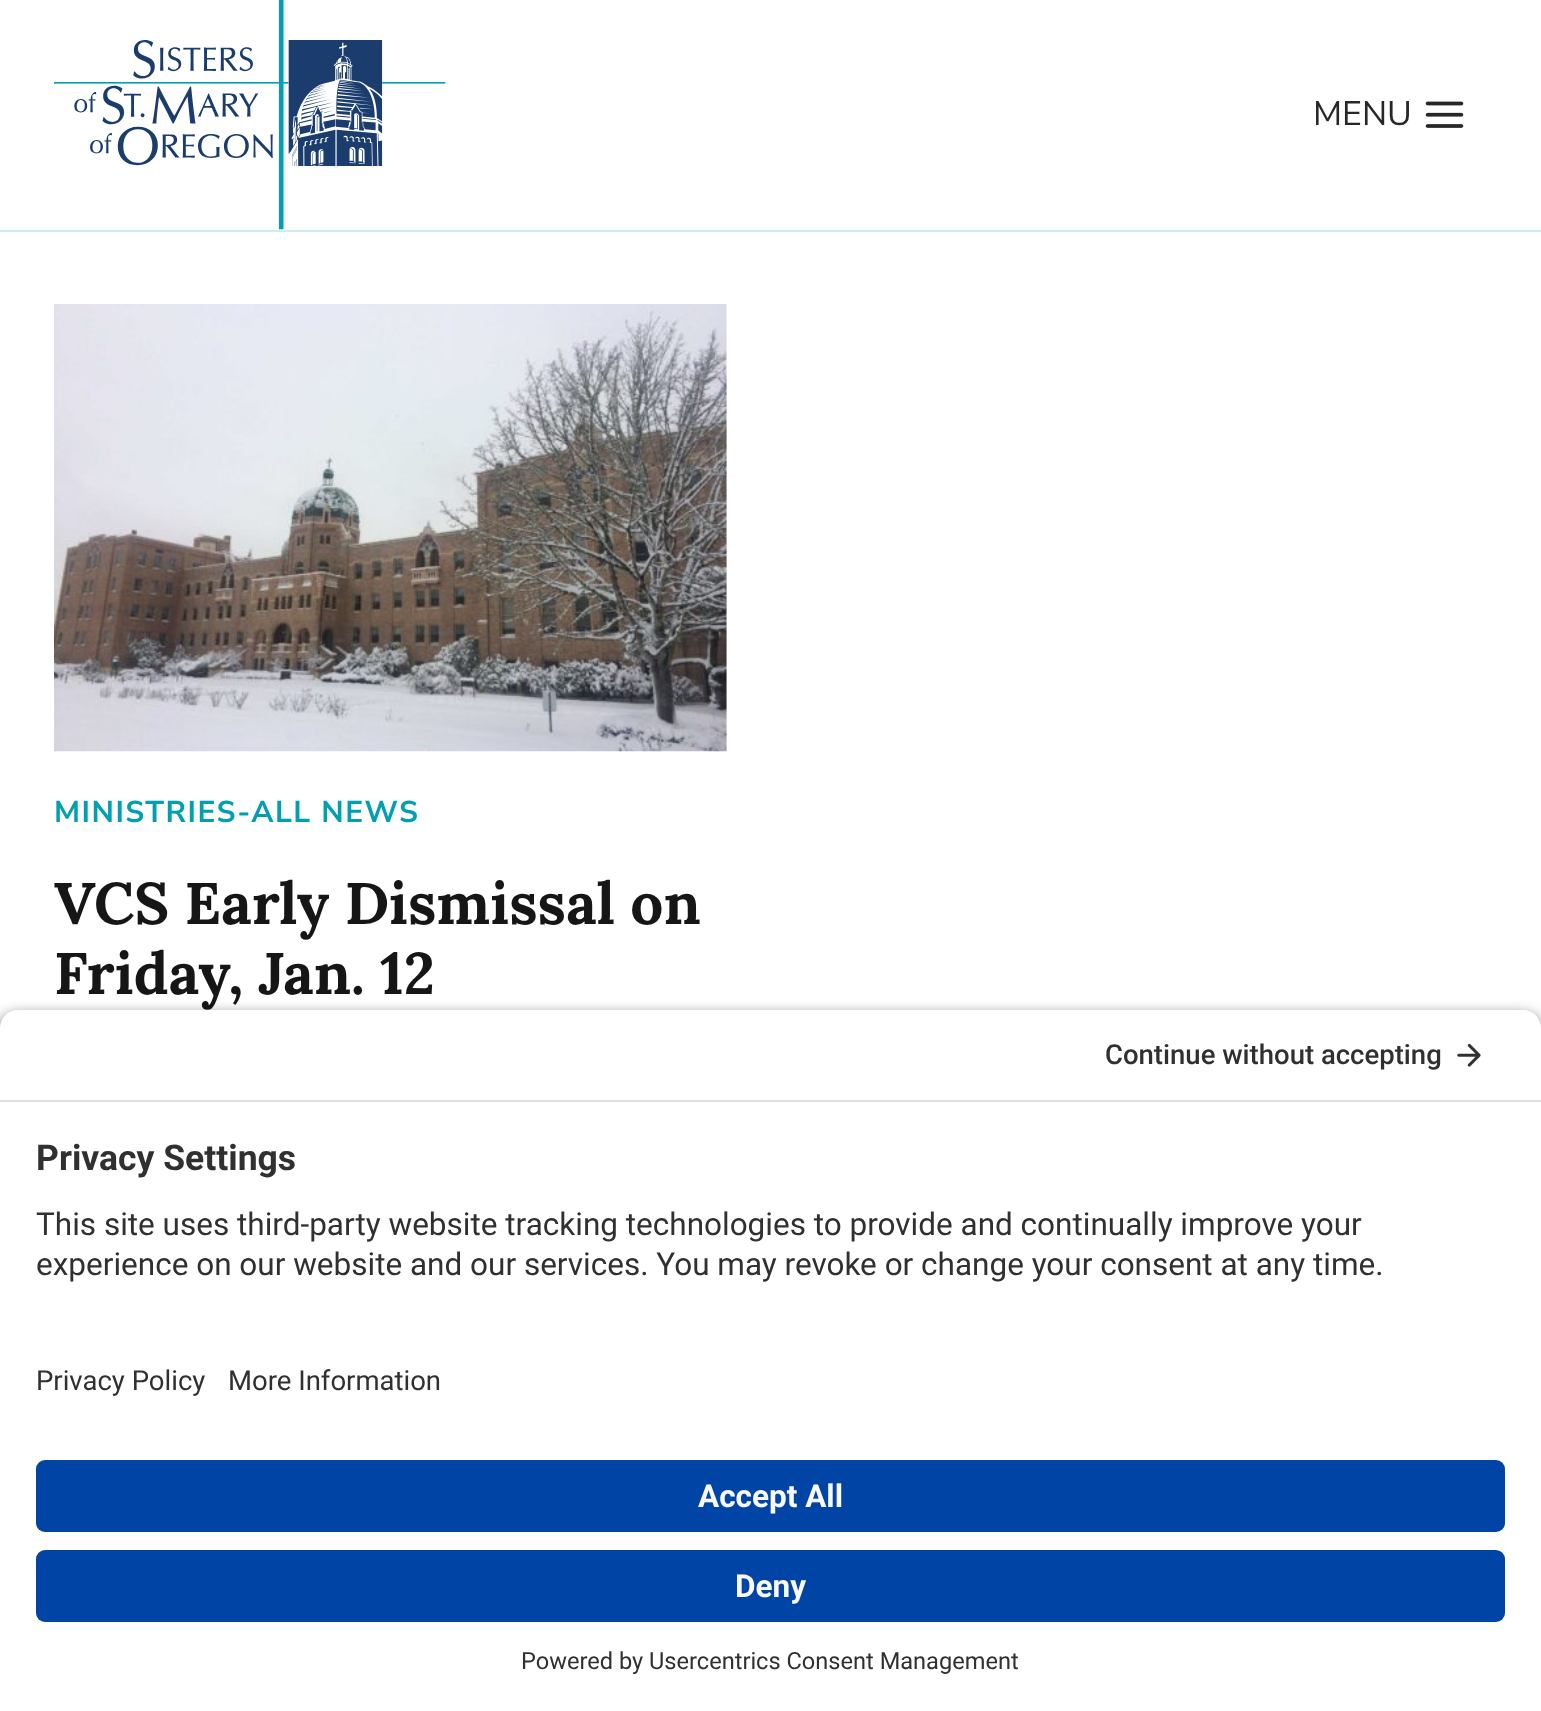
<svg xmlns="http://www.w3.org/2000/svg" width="1541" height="1711">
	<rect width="100%" height="100%" fill="#FFFFFF" />
	<rect x="0" y="230" width="1541" height="2" fill="#CCECEF" />
	<image x="54" y="0" width="392" height="230" href="assets/img1.png" />
	<text x="1313" y="125" font-family="Nunito Sans" font-size="34" fill="#272727">MENU</text>
	<image x="1425" y="101" width="39" height="27" href="assets/img2.png" />
	<image x="54" y="304" width="673" height="448" href="assets/img3.png" />
	<text x="54" y="822" font-family="Nunito Sans" font-size="30" font-weight="700" letter-spacing="1.5" fill="#00A0B0">MINISTRIES-ALL NEWS</text>
	<g font-family="Lora" font-size="58.5" font-weight="700" fill="#161616">
		<text x="54" y="924">VCS Early Dismissal on</text>
		<text x="54" y="994">Friday, Jan. 12</text>
	</g>
	<rect x="0" y="1017" width="1541" height="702" rx="18" fill="#000000" fill-opacity="0.8" filter="blur(8px)" />
	<path d="M18 1010H1523C1533 1010 1541 1018 1541 1028V1103H0V1028C0 1018 8 1010 18 1010Z" fill="#FFFFFF" />
	<rect x="0" y="1100" width="1541" height="2" fill="#DEDEDE" />
	<text x="1105" y="1064" font-family="Roboto" font-size="27.5" font-weight="500" fill="#303030">Continue without accepting</text>
	<image x="1457" y="1043" width="24" height="24" href="assets/img4.png" />
	<rect x="0" y="1103" width="1541" height="608" fill="#FFFFFF" />
	<text x="36" y="1170" font-family="Roboto" font-size="35.5" font-weight="700" fill="#303030">Privacy Settings</text>
	<g font-family="Roboto" font-size="31.5" fill="#303030">
		<text x="36" y="1235">This site uses third-party website tracking technologies to provide and continually improve your</text>
		<text x="36" y="1275">experience on our website and our services. You may revoke or change your consent at any time.</text>
	</g>
	<g font-family="Roboto" font-size="27.5" fill="#303030">
		<text x="36" y="1390">Privacy Policy</text>
		<text x="228" y="1390">More Information</text>
	</g>
	<rect x="36" y="1460" width="1469" height="72" rx="9" fill="#0045A5" />
	<text x="698" y="1507" font-family="Roboto" font-size="31.5" font-weight="700" fill="#FAFAFA">Accept All</text>
	<rect x="36" y="1550" width="1469" height="72" rx="9" fill="#0045A5" />
	<text x="735" y="1597" font-family="Roboto" font-size="31.5" font-weight="700" fill="#FAFAFA">Deny</text>
	<text x="521" y="1669" font-family="Roboto" font-size="23.6" fill="#303030">Powered by Usercentrics Consent Management</text>
</svg>
